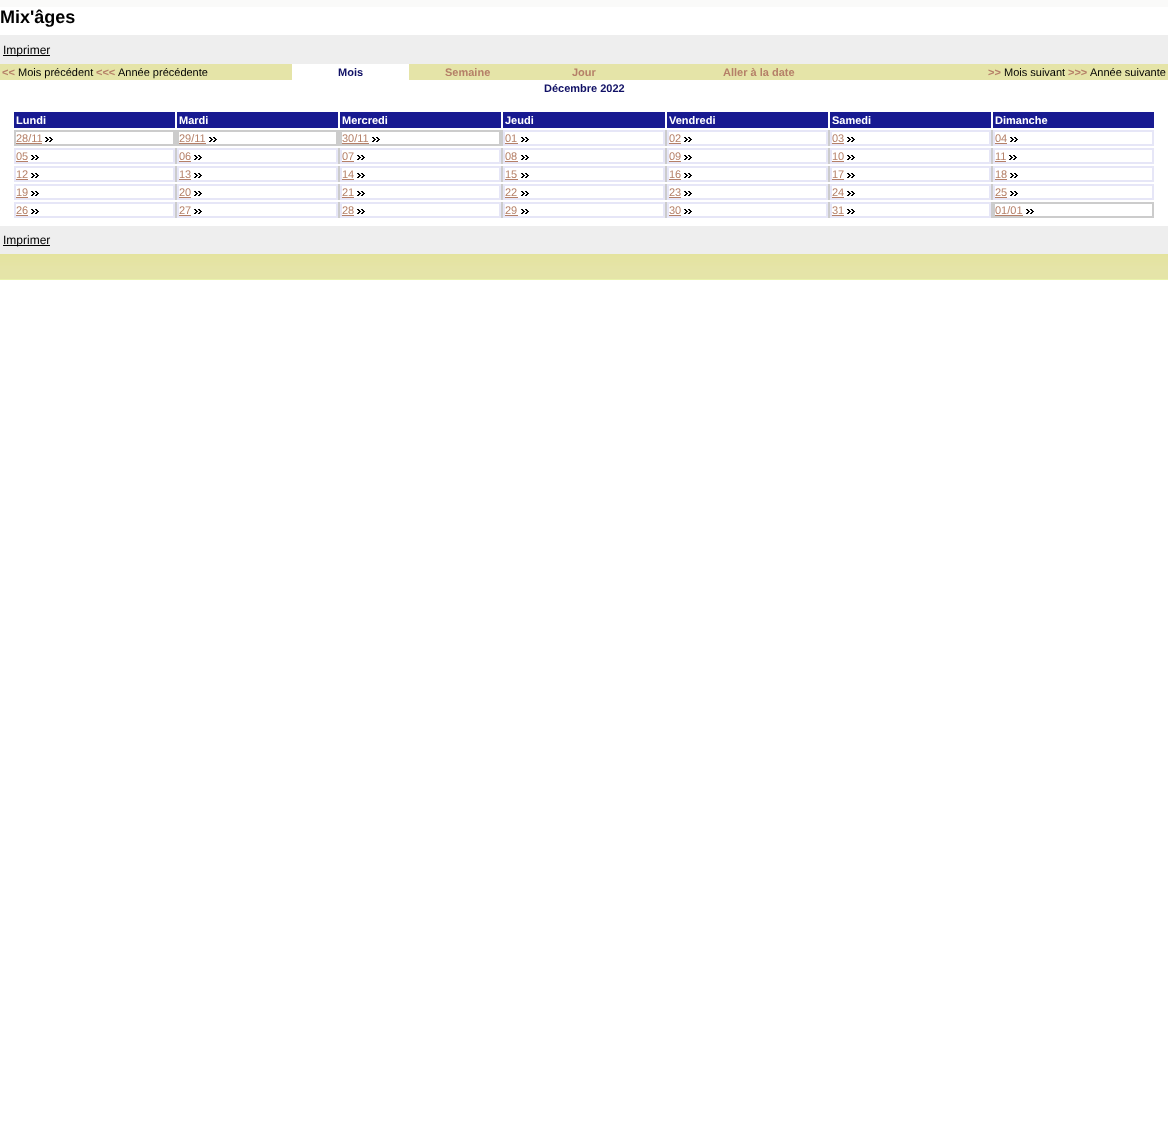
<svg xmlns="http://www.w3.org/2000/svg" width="1168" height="1121">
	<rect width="100%" height="100%" fill="#FFFFFF" />
	<image x="0" y="0" width="1168" height="280" href="assets/img1.png" />
	<rect x="0" y="7" width="1168" height="219" fill="#FFFFFF" />
	<text x="0" y="23" font-family="Liberation Sans" font-size="18" font-weight="700" fill="#000000">Mix'âges</text>
	<rect x="0" y="35" width="1168" height="29" fill="#EEEEEE" />
	<rect x="3" y="55" width="47" height="1" fill="#000000" />
	<text x="3" y="54" font-family="Liberation Sans" font-size="12" fill="#000000">Imprimer</text>
	<rect x="0" y="64" width="1168" height="16" fill="#E5E4A8" />
	<text x="2" y="76" font-family="Liberation Sans" font-size="11" font-weight="700" fill="#B58068">&lt;&lt;</text>
	<text x="18" y="76" font-family="Liberation Sans" font-size="11" fill="#000000">Mois précédent</text>
	<text x="96" y="76" font-family="Liberation Sans" font-size="11" font-weight="700" fill="#B58068">&lt;&lt;&lt;</text>
	<text x="118" y="76" font-family="Liberation Sans" font-size="11" fill="#000000">Année précédente</text>
	<rect x="292" y="64" width="117" height="16" fill="#FFFFFF" />
	<text x="338" y="76" font-family="Liberation Sans" font-size="11" font-weight="700" fill="#111166">Mois</text>
	<g font-family="Liberation Sans" font-size="11" font-weight="700" fill="#B58068">
		<text x="445" y="76">Semaine</text>
		<text x="572" y="76">Jour</text>
		<text x="723" y="76">Aller à la date</text>
		<text x="988" y="76">&gt;&gt;</text>
	</g>
	<text x="1004" y="76" font-family="Liberation Sans" font-size="11" fill="#000000">Mois suivant</text>
	<text x="1068" y="76" font-family="Liberation Sans" font-size="11" font-weight="700" fill="#B58068">&gt;&gt;&gt;</text>
	<text x="1090" y="76" font-family="Liberation Sans" font-size="11" fill="#000000">Année suivante</text>
	<text x="544" y="92" font-family="Liberation Sans" font-size="11" font-weight="700" fill="#111166">Décembre 2022</text>
	<rect x="14" y="112" width="161" height="16" fill="#181A91" />
	<text x="16" y="124" font-family="Liberation Sans" font-size="11" font-weight="700" fill="#FFFFFF">Lundi</text>
	<rect x="177" y="112" width="161" height="16" fill="#181A91" />
	<text x="179" y="124" font-family="Liberation Sans" font-size="11" font-weight="700" fill="#FFFFFF">Mardi</text>
	<rect x="340" y="112" width="161" height="16" fill="#181A91" />
	<text x="342" y="124" font-family="Liberation Sans" font-size="11" font-weight="700" fill="#FFFFFF">Mercredi</text>
	<rect x="503" y="112" width="162" height="16" fill="#181A91" />
	<text x="505" y="124" font-family="Liberation Sans" font-size="11" font-weight="700" fill="#FFFFFF">Jeudi</text>
	<rect x="667" y="112" width="161" height="16" fill="#181A91" />
	<text x="669" y="124" font-family="Liberation Sans" font-size="11" font-weight="700" fill="#FFFFFF">Vendredi</text>
	<rect x="830" y="112" width="161" height="16" fill="#181A91" />
	<text x="832" y="124" font-family="Liberation Sans" font-size="11" font-weight="700" fill="#FFFFFF">Samedi</text>
	<rect x="993" y="112" width="161" height="16" fill="#181A91" />
	<text x="995" y="124" font-family="Liberation Sans" font-size="11" font-weight="700" fill="#FFFFFF">Dimanche</text>
	<rect x="14" y="130" width="979" height="16" fill="#CCCCCC" />
	<rect x="16" y="132" width="157" height="12" fill="#FFFFFF" />
	<text x="16" y="142" font-family="Liberation Sans" font-size="11" fill="#B58068">28/11</text>
	<rect x="16" y="143" width="26" height="1" fill="#B58068" />
	<image x="45" y="137" width="8" height="5" href="assets/img2.png" />
	<rect x="179" y="132" width="157" height="12" fill="#FFFFFF" />
	<text x="179" y="142" font-family="Liberation Sans" font-size="11" fill="#B58068">29/11</text>
	<rect x="179" y="143" width="27" height="1" fill="#B58068" />
	<image x="209" y="137" width="8" height="5" href="assets/img2.png" />
	<rect x="342" y="132" width="157" height="12" fill="#FFFFFF" />
	<text x="342" y="142" font-family="Liberation Sans" font-size="11" fill="#B58068">30/11</text>
	<rect x="342" y="143" width="27" height="1" fill="#B58068" />
	<image x="372" y="137" width="8" height="5" href="assets/img2.png" />
	<rect x="503" y="130" width="162" height="16" fill="#E6E6F7" />
	<rect x="505" y="132" width="158" height="12" fill="#FFFFFF" />
	<text x="505" y="142" font-family="Liberation Sans" font-size="11" fill="#B58068">01</text>
	<rect x="505" y="143" width="13" height="1" fill="#B58068" />
	<image x="521" y="137" width="8" height="5" href="assets/img2.png" />
	<rect x="667" y="130" width="161" height="16" fill="#E6E6F7" />
	<rect x="669" y="132" width="157" height="12" fill="#FFFFFF" />
	<text x="669" y="142" font-family="Liberation Sans" font-size="11" fill="#B58068">02</text>
	<rect x="669" y="143" width="12" height="1" fill="#B58068" />
	<image x="684" y="137" width="8" height="5" href="assets/img2.png" />
	<rect x="830" y="130" width="161" height="16" fill="#E6E6F7" />
	<rect x="832" y="132" width="157" height="12" fill="#FFFFFF" />
	<text x="832" y="142" font-family="Liberation Sans" font-size="11" fill="#B58068">03</text>
	<rect x="832" y="143" width="12" height="1" fill="#B58068" />
	<image x="847" y="137" width="8" height="5" href="assets/img2.png" />
	<rect x="993" y="130" width="161" height="16" fill="#E6E6F7" />
	<rect x="995" y="132" width="157" height="12" fill="#FFFFFF" />
	<text x="995" y="142" font-family="Liberation Sans" font-size="11" fill="#B58068">04</text>
	<rect x="995" y="143" width="12" height="1" fill="#B58068" />
	<image x="1010" y="137" width="8" height="5" href="assets/img2.png" />
	<rect x="175" y="148" width="818" height="16" fill="#CCCCCC" />
	<rect x="14" y="148" width="161" height="16" fill="#E6E6F7" />
	<rect x="16" y="150" width="157" height="12" fill="#FFFFFF" />
	<text x="16" y="160" font-family="Liberation Sans" font-size="11" fill="#B58068">05</text>
	<rect x="16" y="161" width="12" height="1" fill="#B58068" />
	<image x="31" y="155" width="8" height="5" href="assets/img2.png" />
	<rect x="177" y="148" width="161" height="16" fill="#E6E6F7" />
	<rect x="179" y="150" width="157" height="12" fill="#FFFFFF" />
	<text x="179" y="160" font-family="Liberation Sans" font-size="11" fill="#B58068">06</text>
	<rect x="179" y="161" width="12" height="1" fill="#B58068" />
	<image x="194" y="155" width="8" height="5" href="assets/img2.png" />
	<rect x="340" y="148" width="161" height="16" fill="#E6E6F7" />
	<rect x="342" y="150" width="157" height="12" fill="#FFFFFF" />
	<text x="342" y="160" font-family="Liberation Sans" font-size="11" fill="#B58068">07</text>
	<rect x="342" y="161" width="12" height="1" fill="#B58068" />
	<image x="357" y="155" width="8" height="5" href="assets/img2.png" />
	<rect x="503" y="148" width="162" height="16" fill="#E6E6F7" />
	<rect x="505" y="150" width="158" height="12" fill="#FFFFFF" />
	<text x="505" y="160" font-family="Liberation Sans" font-size="11" fill="#B58068">08</text>
	<rect x="505" y="161" width="13" height="1" fill="#B58068" />
	<image x="521" y="155" width="8" height="5" href="assets/img2.png" />
	<rect x="667" y="148" width="161" height="16" fill="#E6E6F7" />
	<rect x="669" y="150" width="157" height="12" fill="#FFFFFF" />
	<text x="669" y="160" font-family="Liberation Sans" font-size="11" fill="#B58068">09</text>
	<rect x="669" y="161" width="12" height="1" fill="#B58068" />
	<image x="684" y="155" width="8" height="5" href="assets/img2.png" />
	<rect x="830" y="148" width="161" height="16" fill="#E6E6F7" />
	<rect x="832" y="150" width="157" height="12" fill="#FFFFFF" />
	<text x="832" y="160" font-family="Liberation Sans" font-size="11" fill="#B58068">10</text>
	<rect x="832" y="161" width="12" height="1" fill="#B58068" />
	<image x="847" y="155" width="8" height="5" href="assets/img2.png" />
	<rect x="993" y="148" width="161" height="16" fill="#E6E6F7" />
	<rect x="995" y="150" width="157" height="12" fill="#FFFFFF" />
	<text x="995" y="160" font-family="Liberation Sans" font-size="11" fill="#B58068">11</text>
	<rect x="995" y="161" width="11" height="1" fill="#B58068" />
	<image x="1009" y="155" width="8" height="5" href="assets/img2.png" />
	<rect x="175" y="166" width="818" height="16" fill="#CCCCCC" />
	<rect x="14" y="166" width="161" height="16" fill="#E6E6F7" />
	<rect x="16" y="168" width="157" height="12" fill="#FFFFFF" />
	<text x="16" y="178" font-family="Liberation Sans" font-size="11" fill="#B58068">12</text>
	<rect x="16" y="179" width="12" height="1" fill="#B58068" />
	<image x="31" y="173" width="8" height="5" href="assets/img2.png" />
	<rect x="177" y="166" width="161" height="16" fill="#E6E6F7" />
	<rect x="179" y="168" width="157" height="12" fill="#FFFFFF" />
	<text x="179" y="178" font-family="Liberation Sans" font-size="11" fill="#B58068">13</text>
	<rect x="179" y="179" width="12" height="1" fill="#B58068" />
	<image x="194" y="173" width="8" height="5" href="assets/img2.png" />
	<rect x="340" y="166" width="161" height="16" fill="#E6E6F7" />
	<rect x="342" y="168" width="157" height="12" fill="#FFFFFF" />
	<text x="342" y="178" font-family="Liberation Sans" font-size="11" fill="#B58068">14</text>
	<rect x="342" y="179" width="12" height="1" fill="#B58068" />
	<image x="357" y="173" width="8" height="5" href="assets/img2.png" />
	<rect x="503" y="166" width="162" height="16" fill="#E6E6F7" />
	<rect x="505" y="168" width="158" height="12" fill="#FFFFFF" />
	<text x="505" y="178" font-family="Liberation Sans" font-size="11" fill="#B58068">15</text>
	<rect x="505" y="179" width="13" height="1" fill="#B58068" />
	<image x="521" y="173" width="8" height="5" href="assets/img2.png" />
	<rect x="667" y="166" width="161" height="16" fill="#E6E6F7" />
	<rect x="669" y="168" width="157" height="12" fill="#FFFFFF" />
	<text x="669" y="178" font-family="Liberation Sans" font-size="11" fill="#B58068">16</text>
	<rect x="669" y="179" width="12" height="1" fill="#B58068" />
	<image x="684" y="173" width="8" height="5" href="assets/img2.png" />
	<rect x="830" y="166" width="161" height="16" fill="#E6E6F7" />
	<rect x="832" y="168" width="157" height="12" fill="#FFFFFF" />
	<text x="832" y="178" font-family="Liberation Sans" font-size="11" fill="#B58068">17</text>
	<rect x="832" y="179" width="12" height="1" fill="#B58068" />
	<image x="847" y="173" width="8" height="5" href="assets/img2.png" />
	<rect x="993" y="166" width="161" height="16" fill="#E6E6F7" />
	<rect x="995" y="168" width="157" height="12" fill="#FFFFFF" />
	<text x="995" y="178" font-family="Liberation Sans" font-size="11" fill="#B58068">18</text>
	<rect x="995" y="179" width="12" height="1" fill="#B58068" />
	<image x="1010" y="173" width="8" height="5" href="assets/img2.png" />
	<rect x="175" y="184" width="818" height="16" fill="#CCCCCC" />
	<rect x="14" y="184" width="161" height="16" fill="#E6E6F7" />
	<rect x="16" y="186" width="157" height="12" fill="#FFFFFF" />
	<text x="16" y="196" font-family="Liberation Sans" font-size="11" fill="#B58068">19</text>
	<rect x="16" y="197" width="12" height="1" fill="#B58068" />
	<image x="31" y="191" width="8" height="5" href="assets/img2.png" />
	<rect x="177" y="184" width="161" height="16" fill="#E6E6F7" />
	<rect x="179" y="186" width="157" height="12" fill="#FFFFFF" />
	<text x="179" y="196" font-family="Liberation Sans" font-size="11" fill="#B58068">20</text>
	<rect x="179" y="197" width="12" height="1" fill="#B58068" />
	<image x="194" y="191" width="8" height="5" href="assets/img2.png" />
	<rect x="340" y="184" width="161" height="16" fill="#E6E6F7" />
	<rect x="342" y="186" width="157" height="12" fill="#FFFFFF" />
	<text x="342" y="196" font-family="Liberation Sans" font-size="11" fill="#B58068">21</text>
	<rect x="342" y="197" width="12" height="1" fill="#B58068" />
	<image x="357" y="191" width="8" height="5" href="assets/img2.png" />
	<rect x="503" y="184" width="162" height="16" fill="#E6E6F7" />
	<rect x="505" y="186" width="158" height="12" fill="#FFFFFF" />
	<text x="505" y="196" font-family="Liberation Sans" font-size="11" fill="#B58068">22</text>
	<rect x="505" y="197" width="13" height="1" fill="#B58068" />
	<image x="521" y="191" width="8" height="5" href="assets/img2.png" />
	<rect x="667" y="184" width="161" height="16" fill="#E6E6F7" />
	<rect x="669" y="186" width="157" height="12" fill="#FFFFFF" />
	<text x="669" y="196" font-family="Liberation Sans" font-size="11" fill="#B58068">23</text>
	<rect x="669" y="197" width="12" height="1" fill="#B58068" />
	<image x="684" y="191" width="8" height="5" href="assets/img2.png" />
	<rect x="830" y="184" width="161" height="16" fill="#E6E6F7" />
	<rect x="832" y="186" width="157" height="12" fill="#FFFFFF" />
	<text x="832" y="196" font-family="Liberation Sans" font-size="11" fill="#B58068">24</text>
	<rect x="832" y="197" width="12" height="1" fill="#B58068" />
	<image x="847" y="191" width="8" height="5" href="assets/img2.png" />
	<rect x="993" y="184" width="161" height="16" fill="#E6E6F7" />
	<rect x="995" y="186" width="157" height="12" fill="#FFFFFF" />
	<text x="995" y="196" font-family="Liberation Sans" font-size="11" fill="#B58068">25</text>
	<rect x="995" y="197" width="12" height="1" fill="#B58068" />
	<image x="1010" y="191" width="8" height="5" href="assets/img2.png" />
	<rect x="175" y="202" width="979" height="16" fill="#CCCCCC" />
	<rect x="14" y="202" width="161" height="16" fill="#E6E6F7" />
	<rect x="16" y="204" width="157" height="12" fill="#FFFFFF" />
	<text x="16" y="214" font-family="Liberation Sans" font-size="11" fill="#B58068">26</text>
	<rect x="16" y="215" width="12" height="1" fill="#B58068" />
	<image x="31" y="209" width="8" height="5" href="assets/img2.png" />
	<rect x="177" y="202" width="161" height="16" fill="#E6E6F7" />
	<rect x="179" y="204" width="157" height="12" fill="#FFFFFF" />
	<text x="179" y="214" font-family="Liberation Sans" font-size="11" fill="#B58068">27</text>
	<rect x="179" y="215" width="12" height="1" fill="#B58068" />
	<image x="194" y="209" width="8" height="5" href="assets/img2.png" />
	<rect x="340" y="202" width="161" height="16" fill="#E6E6F7" />
	<rect x="342" y="204" width="157" height="12" fill="#FFFFFF" />
	<text x="342" y="214" font-family="Liberation Sans" font-size="11" fill="#B58068">28</text>
	<rect x="342" y="215" width="12" height="1" fill="#B58068" />
	<image x="357" y="209" width="8" height="5" href="assets/img2.png" />
	<rect x="503" y="202" width="162" height="16" fill="#E6E6F7" />
	<rect x="505" y="204" width="158" height="12" fill="#FFFFFF" />
	<text x="505" y="214" font-family="Liberation Sans" font-size="11" fill="#B58068">29</text>
	<rect x="505" y="215" width="13" height="1" fill="#B58068" />
	<image x="521" y="209" width="8" height="5" href="assets/img2.png" />
	<rect x="667" y="202" width="161" height="16" fill="#E6E6F7" />
	<rect x="669" y="204" width="157" height="12" fill="#FFFFFF" />
	<text x="669" y="214" font-family="Liberation Sans" font-size="11" fill="#B58068">30</text>
	<rect x="669" y="215" width="12" height="1" fill="#B58068" />
	<image x="684" y="209" width="8" height="5" href="assets/img2.png" />
	<rect x="830" y="202" width="161" height="16" fill="#E6E6F7" />
	<rect x="832" y="204" width="157" height="12" fill="#FFFFFF" />
	<text x="832" y="214" font-family="Liberation Sans" font-size="11" fill="#B58068">31</text>
	<rect x="832" y="215" width="12" height="1" fill="#B58068" />
	<image x="847" y="209" width="8" height="5" href="assets/img2.png" />
	<rect x="995" y="204" width="157" height="12" fill="#FFFFFF" />
	<text x="995" y="214" font-family="Liberation Sans" font-size="11" fill="#B58068">01/01</text>
	<rect x="995" y="215" width="28" height="1" fill="#B58068" />
	<image x="1026" y="209" width="8" height="5" href="assets/img2.png" />
	<rect x="0" y="226" width="1168" height="28" fill="#EEEEEE" />
	<rect x="3" y="245" width="47" height="1" fill="#000000" />
	<text x="3" y="244" font-family="Liberation Sans" font-size="12" fill="#000000">Imprimer</text>
</svg>
